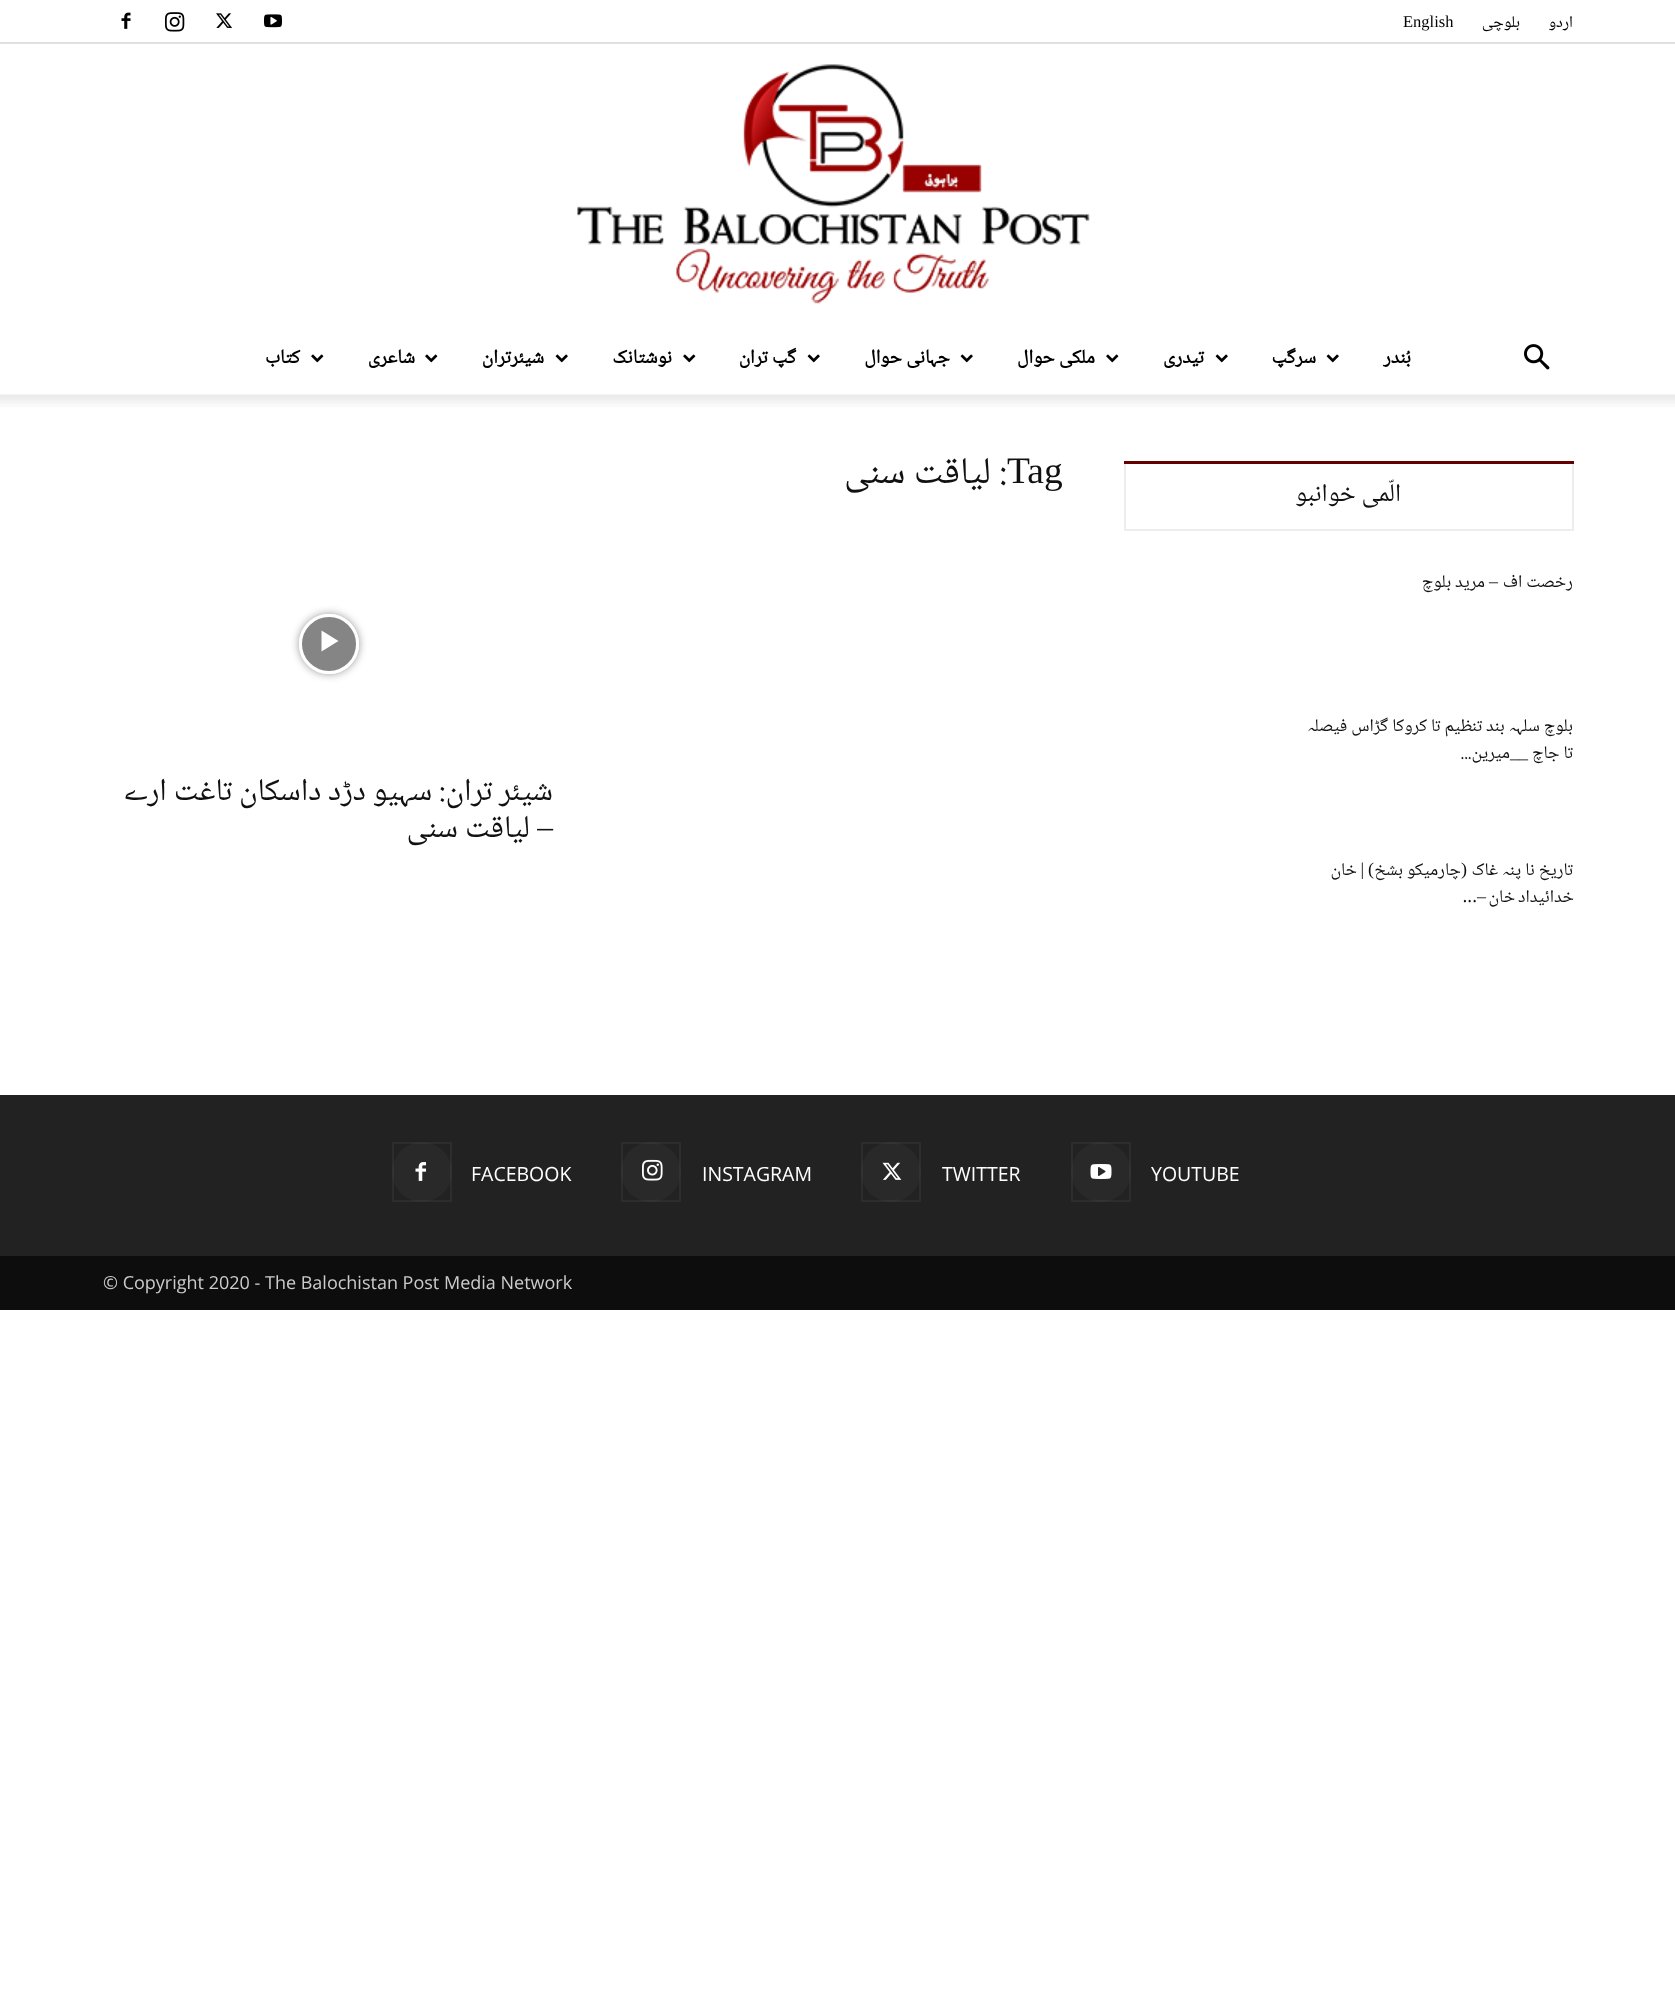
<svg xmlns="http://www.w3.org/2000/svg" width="1675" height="2014">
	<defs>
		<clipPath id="clip1"><path d="M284 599H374V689H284ZM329 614C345.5 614 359 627.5 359 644C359 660.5 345.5 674 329 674C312.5 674 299 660.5 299 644C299 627.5 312.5 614 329 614Z" clip-rule="evenodd" /></clipPath>
	</defs>
	<rect width="100%" height="100%" fill="#FFFFFF" />
	<rect x="0" y="42" width="1675" height="2" fill="#E0E0E0" />
	<g font-family="Noto Naskh Arabic" font-size="16.5" direction="rtl" fill="#000000">
		<text x="1573" y="27">اردو</text>
		<text x="1520" y="27">بلوچی</text>
	</g>
	<text x="1403" y="27" font-family="Liberation Serif" font-size="16.5" fill="#000000">English</text>
	<image x="264" y="14" width="18" height="14" href="assets/img1.png" />
	<image x="216" y="13" width="16" height="15" href="assets/img2.png" />
	<image x="165" y="12" width="20" height="20" href="assets/img3.png" />
	<image x="121" y="12" width="10" height="17" href="assets/img4.png" />
	<image x="577" y="64" width="513" height="240" href="assets/img5.png" />
	<image x="1524" y="344" width="26" height="26" href="assets/img6.png" />
	<text x="1411" y="363" font-family="Noto Naskh Arabic" font-size="19.5" font-weight="700" direction="rtl" fill="#000000">بُندر</text>
	<image x="1326" y="354" width="13" height="9" href="assets/img7.png" />
	<text x="1316" y="363" font-family="Noto Naskh Arabic" font-size="19.5" font-weight="700" direction="rtl" fill="#000000">سرگپ</text>
	<image x="1215" y="354" width="13" height="9" href="assets/img7.png" />
	<text x="1204" y="363" font-family="Noto Naskh Arabic" font-size="19.5" font-weight="700" direction="rtl" fill="#000000">تیدری</text>
	<image x="1106" y="354" width="13" height="9" href="assets/img8.png" />
	<text x="1095" y="363" font-family="Noto Naskh Arabic" font-size="19.5" font-weight="700" direction="rtl" fill="#000000">ملکی حوال</text>
	<image x="960" y="354" width="13" height="9" href="assets/img7.png" />
	<text x="950" y="363" font-family="Noto Naskh Arabic" font-size="19.5" font-weight="700" direction="rtl" fill="#000000">جہانی حوال</text>
	<image x="807" y="354" width="13" height="9" href="assets/img7.png" />
	<text x="796" y="363" font-family="Noto Naskh Arabic" font-size="19.5" font-weight="700" direction="rtl" fill="#000000">گپ تران</text>
	<image x="683" y="354" width="13" height="9" href="assets/img8.png" />
	<text x="672" y="363" font-family="Noto Naskh Arabic" font-size="19.5" font-weight="700" direction="rtl" fill="#000000">نوشتانک</text>
	<image x="555" y="354" width="13" height="9" href="assets/img7.png" />
	<text x="544" y="363" font-family="Noto Naskh Arabic" font-size="19.5" font-weight="700" direction="rtl" fill="#000000">شیئرتران</text>
	<image x="425" y="354" width="13" height="9" href="assets/img8.png" />
	<text x="415" y="363" font-family="Noto Naskh Arabic" font-size="19.5" font-weight="700" direction="rtl" fill="#000000">شاعری</text>
	<image x="311" y="354" width="13" height="9" href="assets/img8.png" />
	<text x="300" y="363" font-family="Noto Naskh Arabic" font-size="19.5" font-weight="700" direction="rtl" fill="#000000">کتاب</text>
	<image x="0" y="394" width="1675" height="13" href="assets/img9.png" />
	<rect x="1125" y="462" width="448" height="68" fill="none" stroke="#EDEDED" stroke-width="2" />
	<rect x="1124" y="461" width="450" height="3" fill="#660000" />
	<text x="1401" y="501" font-family="Noto Naskh Arabic" font-size="25.5" direction="rtl" fill="#111111">الّمی خوانبو</text>
	<text x="1573" y="587" font-family="Noto Naskh Arabic" font-size="18" direction="rtl" fill="#111111">رخصت اف</text>
	<text x="1498" y="587" font-family="Liberation Serif" font-size="18" direction="rtl" fill="#111111">–</text>
	<g font-family="Noto Naskh Arabic" font-size="18" direction="rtl" fill="#111111">
		<text x="1485" y="587">مرید بلوچ</text>
		<text x="1573" y="731">بلوچ سلہہ بند تنظیم تا کروکا گڑاس فیصلہ</text>
		<text x="1573" y="758">تا جاچ</text>
	</g>
	<text x="1528" y="758" font-family="Liberation Serif" font-size="18" direction="rtl" fill="#111111">__</text>
	<g font-family="Noto Naskh Arabic" font-size="18" direction="rtl" fill="#111111">
		<text x="1510" y="758">میرین...</text>
		<text x="1573" y="875">تاریخ نا پنہ غاک</text>
	</g>
	<text x="1467" y="875" font-family="Liberation Serif" font-size="18" direction="rtl" fill="#111111">(</text>
	<text x="1461" y="875" font-family="Noto Naskh Arabic" font-size="18" direction="rtl" fill="#111111">چارمیکو بشخ</text>
	<g font-family="Liberation Serif" font-size="18" direction="rtl" fill="#111111">
		<text x="1374" y="875">)</text>
		<text x="1364" y="875">|</text>
	</g>
	<g font-family="Noto Naskh Arabic" font-size="18" direction="rtl" fill="#111111">
		<text x="1357" y="875">خان</text>
		<text x="1574" y="902" word-spacing="-1">خدائیداد خان</text>
	</g>
	<text x="1486" y="902" font-family="Liberation Serif" font-size="18" direction="rtl" fill="#111111">–</text>
	<text x="1477" y="902" font-family="Noto Naskh Arabic" font-size="18" direction="rtl" fill="#111111">...</text>
	<text x="1007" y="483" font-family="Liberation Serif" font-size="37.5" fill="#111111">Tag</text>
	<text x="1007" y="483" font-family="Noto Naskh Arabic" font-size="37.5" direction="rtl" fill="#111111">: لیاقت سنی</text>
	<g clip-path="url(#clip1)">
		<rect x="299" y="614" width="60" height="60" rx="30" fill="#000000" fill-opacity="0.4" filter="blur(4.5px)" />
	</g>
	<circle cx="329" cy="644" r="28.5" fill="#000000" fill-opacity="0.48" stroke="#FFFFFF" stroke-width="3" />
	<path d="M321.5 630.5V651.5L338.5 641Z" fill="#FFFFFF" />
	<text x="553" y="800" font-family="Noto Naskh Arabic" font-size="31.5" direction="rtl" fill="#111111">شیئر تران: سہیو دڑد داسکان تاغت ارے</text>
	<text x="553" y="837" font-family="Liberation Serif" font-size="31.5" direction="rtl" fill="#111111">–</text>
	<text x="530" y="837" font-family="Noto Naskh Arabic" font-size="31.5" direction="rtl" fill="#111111">لیاقت سنی</text>
	<rect x="0" y="1095" width="1675" height="161" fill="#222222" />
	<text x="1151" y="1181" font-family="Open Sans" font-size="19.5" fill="#FFFFFF">YOUTUBE</text>
	<circle cx="1101" cy="1172" r="30" fill="#292929" />
	<image x="1090" y="1164" width="22" height="15" href="assets/img10.png" />
	<rect x="1072" y="1143" width="58" height="58" fill="none" stroke="#FFFFFF" stroke-opacity="0.05" stroke-width="2" />
	<text x="942" y="1181" font-family="Open Sans" font-size="19.5" fill="#FFFFFF">TWITTER</text>
	<circle cx="891" cy="1172" r="30" fill="#292929" />
	<image x="882" y="1162" width="20" height="18" href="assets/img11.png" />
	<rect x="862" y="1143" width="58" height="58" fill="none" stroke="#FFFFFF" stroke-opacity="0.05" stroke-width="2" />
	<text x="702" y="1181" font-family="Open Sans" font-size="19.5" fill="#FFFFFF">INSTAGRAM</text>
	<circle cx="651" cy="1172" r="30" fill="#292929" />
	<image x="642" y="1159" width="21" height="22" href="assets/img12.png" />
	<rect x="622" y="1143" width="58" height="58" fill="none" stroke="#FFFFFF" stroke-opacity="0.05" stroke-width="2" />
	<text x="471" y="1181" font-family="Open Sans" font-size="19.5" fill="#FFFFFF">FACEBOOK</text>
	<circle cx="422" cy="1172" r="30" fill="#292929" />
	<image x="415" y="1162" width="11" height="19" href="assets/img13.png" />
	<rect x="393" y="1143" width="58" height="58" fill="none" stroke="#FFFFFF" stroke-opacity="0.05" stroke-width="2" />
	<rect x="0" y="1256" width="1675" height="54" fill="#0D0D0D" />
	<text x="103" y="1289" font-family="Open Sans" font-size="18" fill="#CCCCCC">© Copyright 2020 - The Balochistan Post Media Network</text>
</svg>
